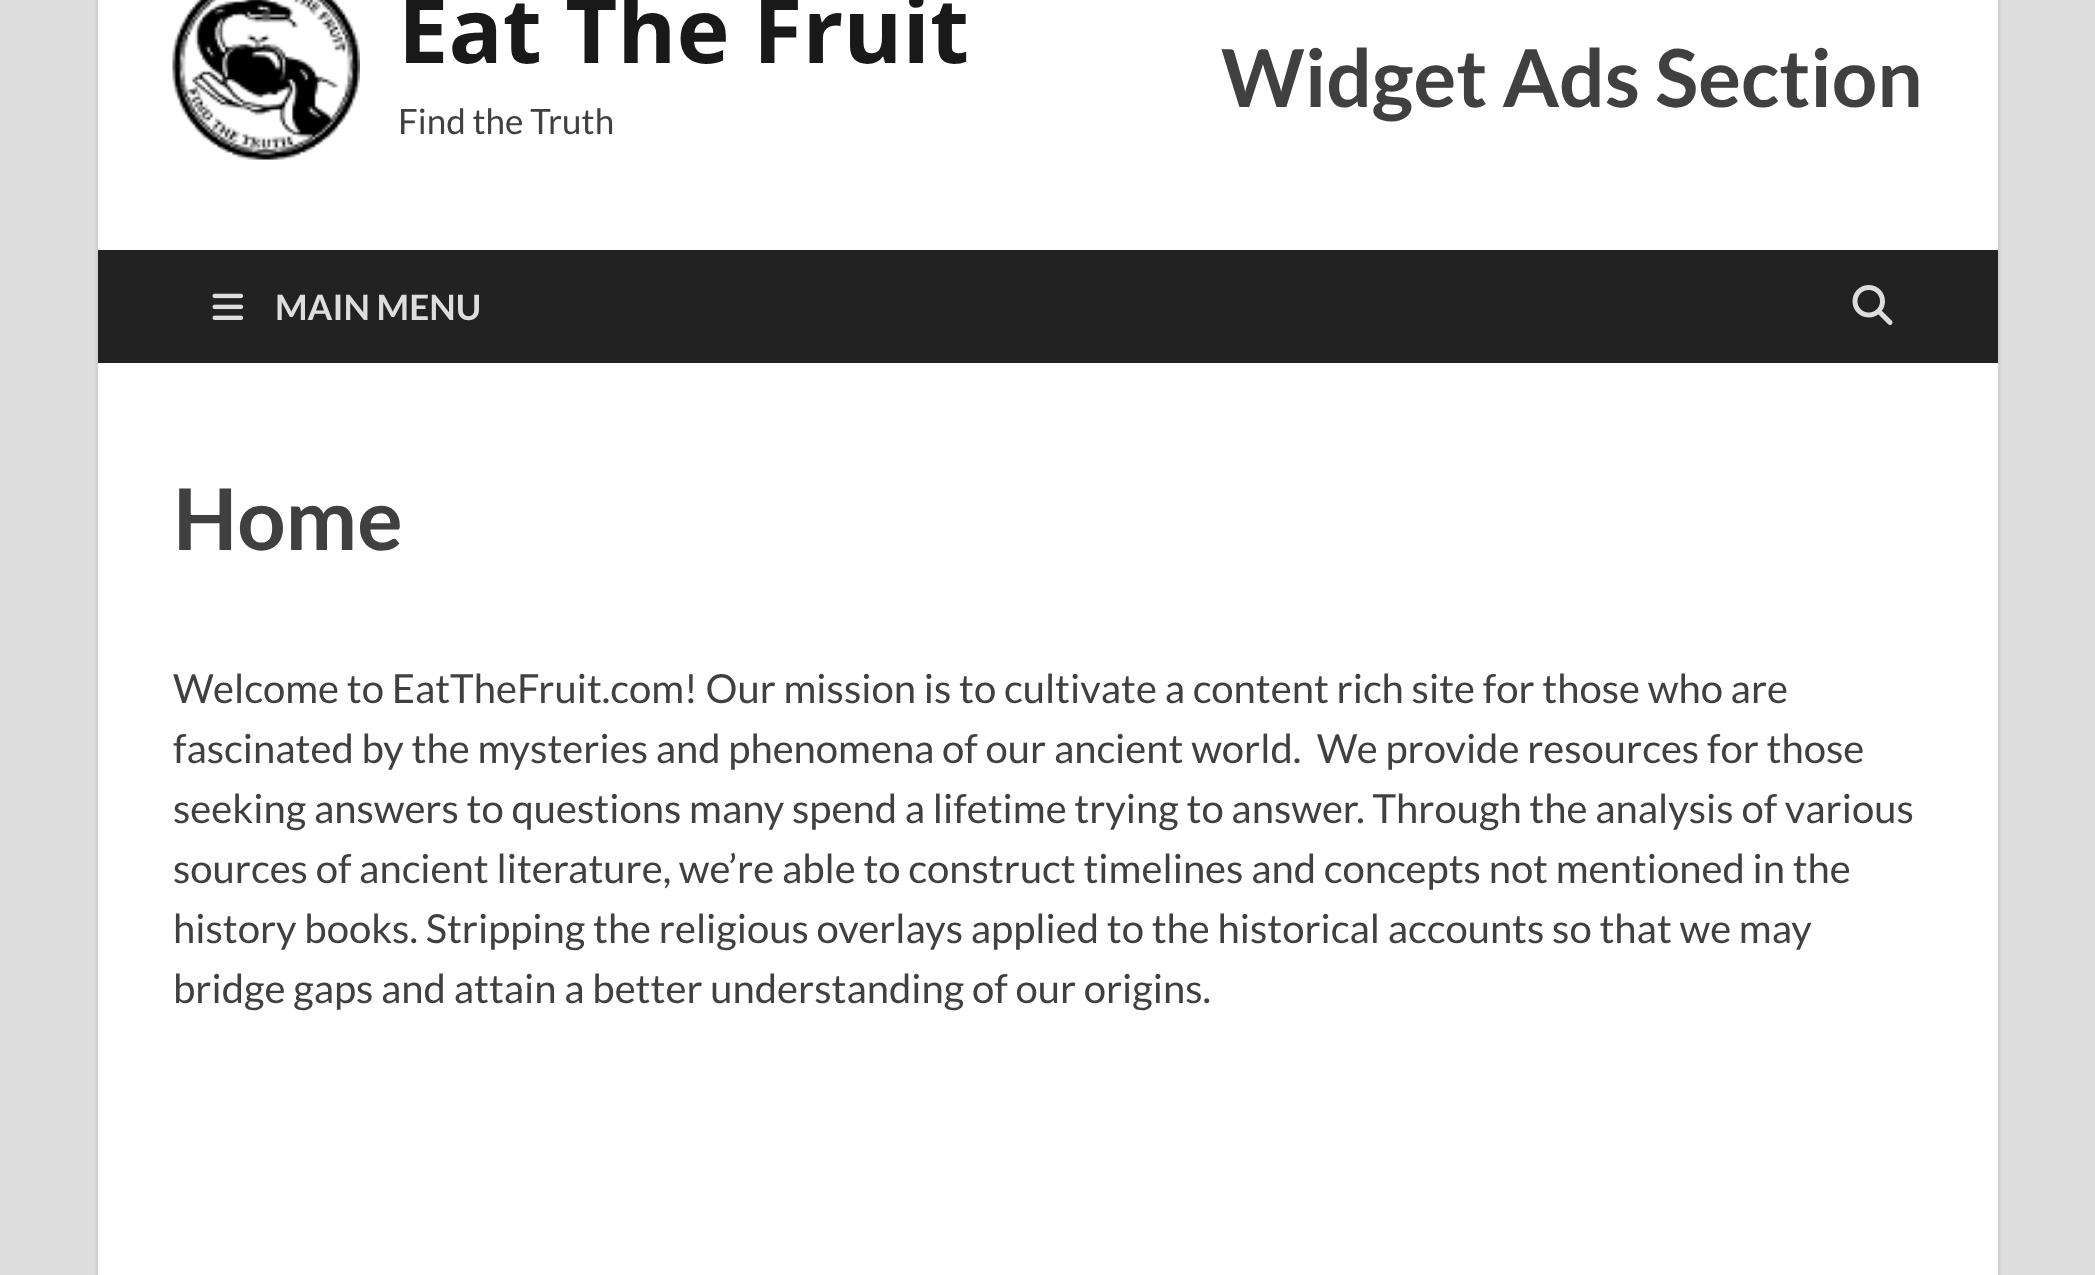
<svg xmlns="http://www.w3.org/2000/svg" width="2095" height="1275">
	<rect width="100%" height="100%" fill="#DDDDDD" />
	<rect x="98" y="-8" width="1900" height="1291" fill="#BBBBBB" filter="blur(2.5px)" />
	<rect x="98" y="0" width="1900" height="1275" fill="#FFFFFF" />
	<image x="172" y="0" width="188" height="160" href="assets/img1.png" />
	<text x="398" y="63" font-family="Open Sans" font-size="90" font-weight="700" fill="#191919">Eat The Fruit</text>
	<text x="398" y="134" font-family="Lato" font-size="35" fill="#404040">Find the Truth</text>
	<text x="1221" y="107" font-family="Lato" font-size="80" font-weight="700" fill="#404040">Widget Ads Section</text>
	<rect x="98" y="250" width="1900" height="113" fill="#222222" />
	<image x="212" y="293" width="32" height="27" href="assets/img2.png" />
	<text x="275" y="320" font-family="Lato" font-size="35" font-weight="700" fill="#DDDDDD">MAIN MENU</text>
	<image x="1852" y="285" width="41" height="40" href="assets/img3.png" />
	<text x="173" y="550" font-family="Lato" font-size="85" font-weight="700" fill="#404040">Home</text>
	<g font-family="Lato" font-size="40" fill="#404040">
		<text x="173" y="703">Welcome to EatTheFruit.com! Our mission is to cultivate a content rich site for those who are</text>
		<text x="173" y="763" xml:space="preserve">fascinated by the mysteries and phenomena of our ancient world.  We provide resources for those</text>
		<text x="173" y="823">seeking answers to questions many spend a lifetime trying to answer. Through the analysis of various</text>
		<text x="173" y="883">sources of ancient literature, we’re able to construct timelines and concepts not mentioned in the</text>
		<text x="173" y="943">history books. Stripping the religious overlays applied to the historical accounts so that we may</text>
		<text x="173" y="1003">bridge gaps and attain a better understanding of our origins.</text>
	</g>
</svg>
